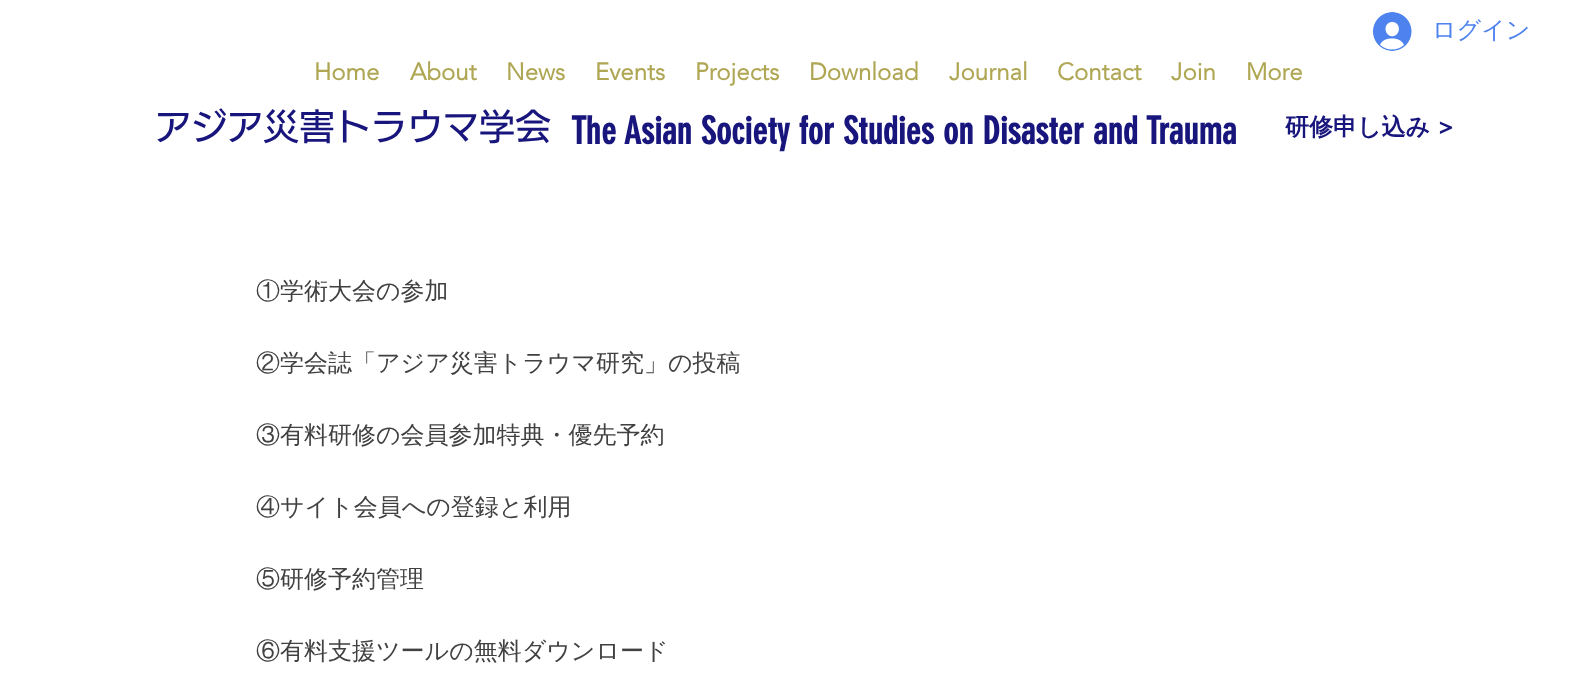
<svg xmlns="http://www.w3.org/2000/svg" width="1591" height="698">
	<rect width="100%" height="100%" fill="#FFFFFF" />
	<image x="1373" y="12" width="39" height="39" href="assets/img1.png" />
	<text x="1432" y="38" font-family="WenQuanYi Zen Hei" font-size="24" font-weight="500" fill="#4D82EF">ログイン</text>
	<text x="155" y="140" font-family="'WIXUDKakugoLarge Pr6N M'" font-size="36" font-weight="500" fill="#18157C">アジア災害トラウマ学会</text>
	<text x="571" y="144" font-family="'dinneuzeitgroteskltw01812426'" font-size="37.5" font-weight="700" fill="#18157C">The Asian Society for Studies on Disaster and Trauma</text>
	<text x="1285" y="135" font-family="WenQuanYi Zen Hei" font-size="24" font-weight="700" fill="#18157C">研修申し込み</text>
	<text x="1438" y="135" font-family="'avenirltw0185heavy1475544'" font-size="24" font-weight="900" fill="#18157C">&gt;</text>
	<g font-family="'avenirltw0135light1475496'" font-size="24" font-weight="700" fill="#B0A755">
		<text x="314" y="80">Home</text>
		<text x="410" y="80">About</text>
		<text x="506" y="80">News</text>
		<text x="595" y="80">Events</text>
		<text x="695" y="80">Projects</text>
		<text x="809" y="80">Download</text>
		<text x="949" y="80">Journal</text>
		<text x="1057" y="80">Contact</text>
		<text x="1171" y="80">Join</text>
		<text x="1246" y="80">More</text>
	</g>
	<g font-family="WenQuanYi Zen Hei" font-size="24" font-weight="500" fill="#414141">
		<text x="256" y="299">①学術大会の参加</text>
		<text x="256" y="371">②学会誌「アジア災害トラウマ研究」の投稿</text>
		<text x="256" y="443">③有料研修の会員参加特典・優先予約</text>
		<text x="256" y="515">④サイト会員への登録と利用</text>
		<text x="256" y="587">⑤研修予約管理</text>
		<text x="256" y="659">⑥有料支援ツールの無料ダウンロード</text>
	</g>
</svg>
